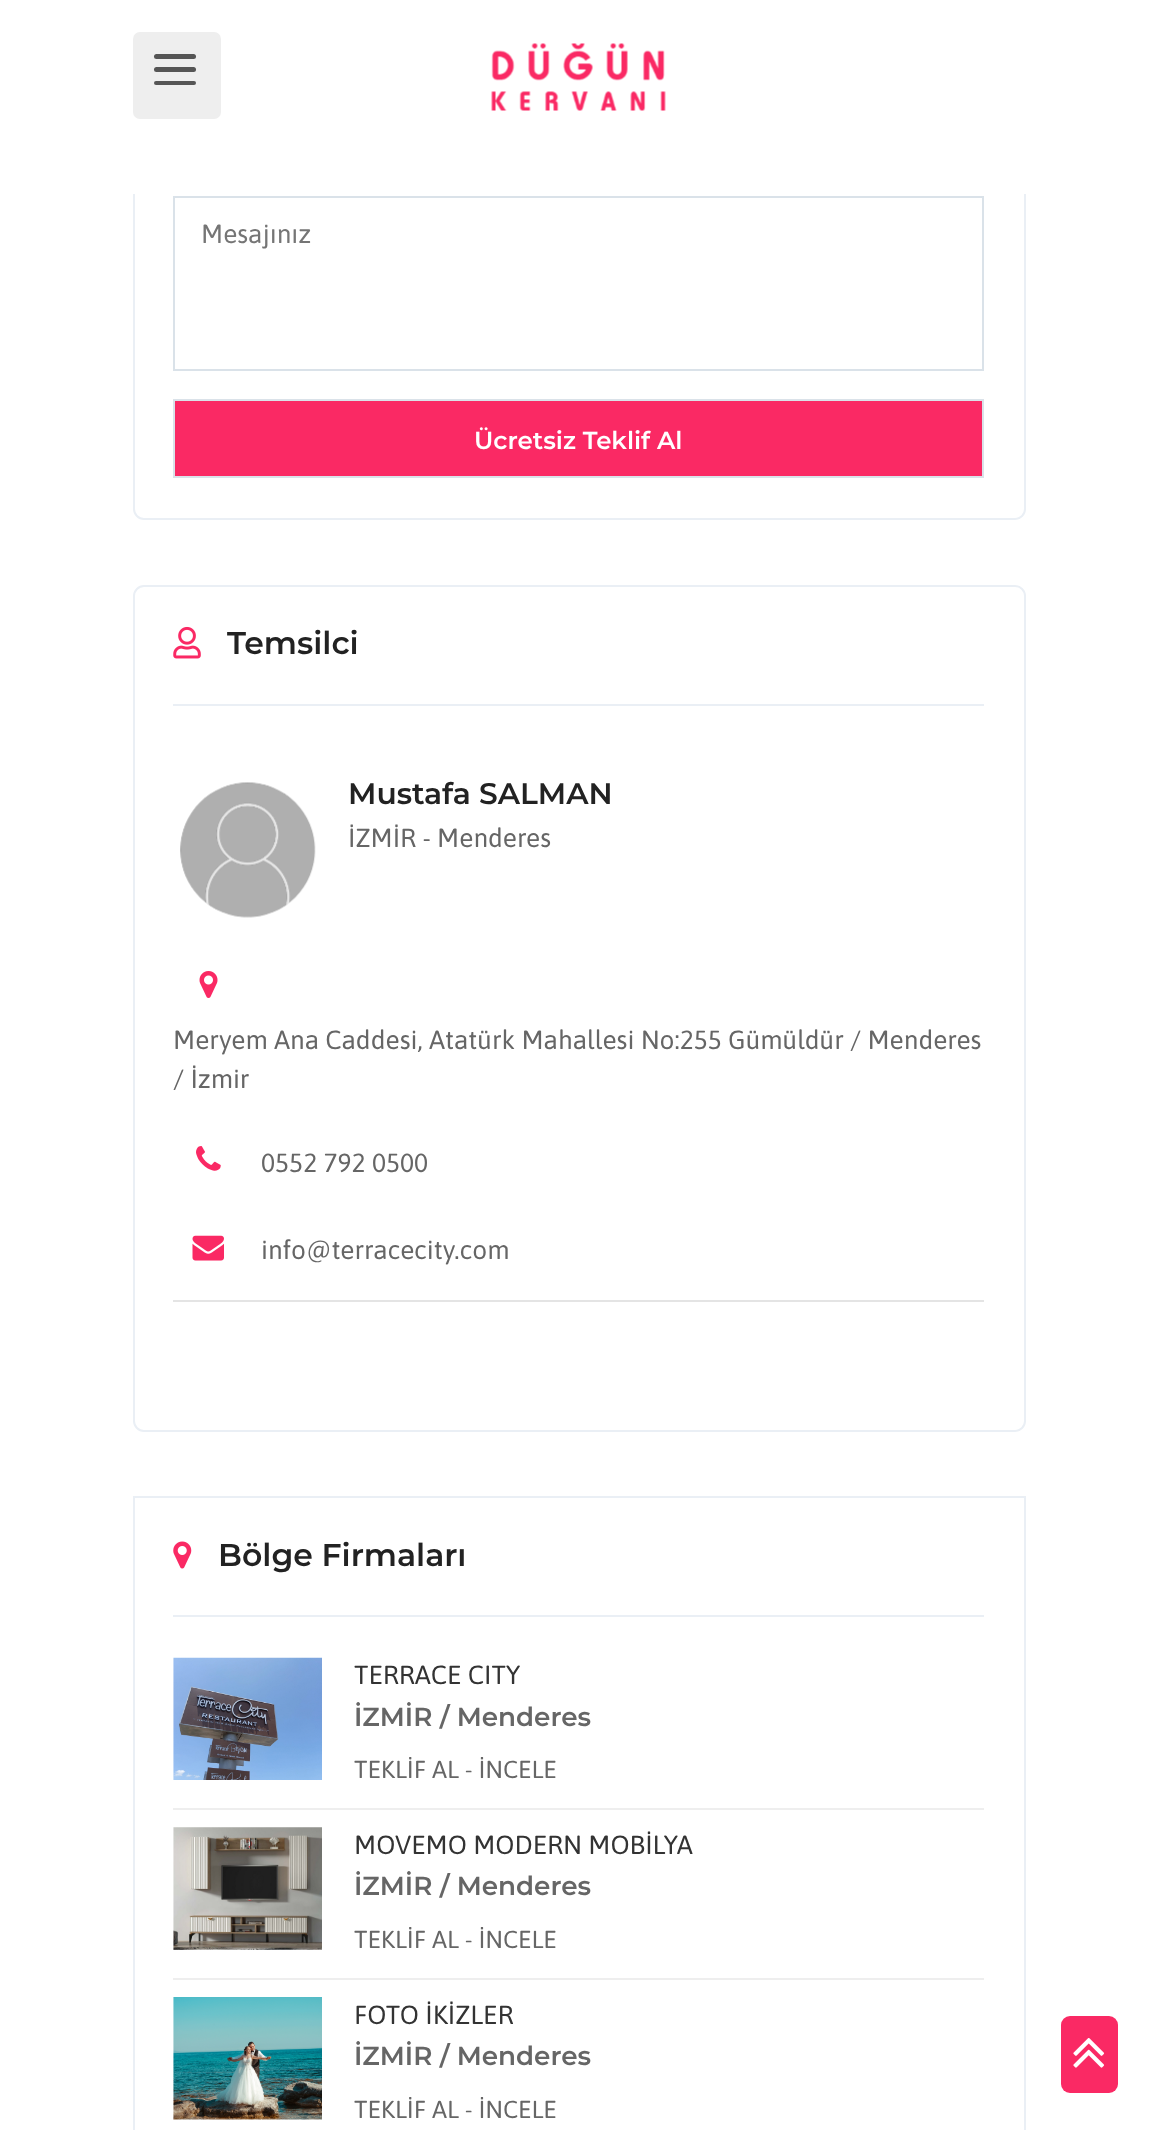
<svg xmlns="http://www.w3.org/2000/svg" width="1156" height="2130">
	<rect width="100%" height="100%" fill="#FFFFFF" />
	<rect x="134" y="-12" width="891" height="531" rx="10" fill="none" stroke="#EAEFF5" stroke-width="2" />
	<rect x="133" y="0" width="893" height="194" fill="#FFFFFF" />
	<rect x="133" y="32" width="88" height="87" rx="7" fill="#EEEEEE" />
	<rect x="154" y="81" width="42" height="4" rx="2" fill="#555555" />
	<rect x="154" y="54" width="42" height="5" rx="2.5" fill="#555555" />
	<rect x="154" y="67" width="42" height="5" rx="2.5" fill="#555555" />
	<image x="491" y="43" width="175" height="68" href="assets/img1.png" />
	<rect x="174" y="197" width="809" height="173" fill="none" stroke="#DAE2E9" stroke-width="2" />
	<text x="201" y="243" font-family="Asap" font-size="26.25" fill="#757575">Mesajınız</text>
	<rect x="174" y="400" width="809" height="77" fill="#FA2964" stroke="#DAE2E9" stroke-width="2" />
	<text x="474" y="449" font-family="Montserrat" font-size="24.5" font-weight="600" fill="#FFFFFF">Ücretsiz Teklif Al</text>
	<rect x="134" y="586" width="891" height="845" rx="10" fill="none" stroke="#EAEFF5" stroke-width="2" />
	<rect x="173" y="704" width="811" height="2" fill="#EAEFF5" />
	<image x="173" y="626" width="28" height="33" href="assets/img2.png" />
	<text x="227" y="654" font-family="Montserrat" font-size="31.5" font-weight="600" fill="#222222">Temsilci</text>
	<image x="180" y="782" width="136" height="136" href="assets/img3.png" />
	<text x="348" y="804" font-family="Montserrat" font-size="29.75" font-weight="600" fill="#222222">Mustafa SALMAN</text>
	<text x="348" y="847" font-family="Asap" font-size="26.25" fill="#666666">İZMİR - Menderes</text>
	<image x="199" y="971" width="19" height="27" href="assets/img4.png" />
	<g font-family="Asap" font-size="26.25" fill="#666666">
		<text x="173" y="1049">Meryem Ana Caddesi, Atatürk Mahallesi No:255 Gümüldür / Menderes</text>
		<text x="173" y="1088">/ İzmir</text>
	</g>
	<image x="196" y="1146" width="25" height="25" href="assets/img5.png" />
	<text x="261" y="1172" font-family="Asap" font-size="26.25" fill="#666666">0552 792 0500</text>
	<image x="192" y="1235" width="32" height="26" href="assets/img6.png" />
	<text x="261" y="1259" font-family="Asap" font-size="26.25" fill="#666666">info@terracecity.com</text>
	<rect x="173" y="1300" width="811" height="2" fill="#E4E4E4" />
	<rect x="134" y="1497" width="891" height="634" fill="none" stroke="#EAEFF5" stroke-width="2" />
	<rect x="173" y="1615" width="811" height="2" fill="#EAEFF5" />
	<image x="173" y="1541" width="19" height="28" href="assets/img7.png" />
	<text x="218" y="1566" font-family="Montserrat" font-size="31.5" font-weight="600" fill="#222222">Bölge Firmaları</text>
	<rect x="173" y="1808" width="811" height="2" fill="#EEEEEE" />
	<image x="173" y="1657" width="149" height="123" href="assets/img8.png" />
	<text x="354" y="1684" font-family="Asap" font-size="26.25" fill="#333333">TERRACE CITY</text>
	<text x="354" y="1726" font-family="Montserrat" font-size="26.25" font-weight="600" fill="#666666">İZMİR / Menderes</text>
	<text x="354" y="1778" font-family="Asap" font-size="24.5" fill="#666666">TEKLİF AL - İNCELE</text>
	<rect x="173" y="1978" width="811" height="2" fill="#EEEEEE" />
	<image x="173" y="1827" width="149" height="123" href="assets/img9.png" />
	<text x="354" y="1854" font-family="Asap" font-size="26.25" fill="#333333">MOVEMO MODERN MOBİLYA</text>
	<text x="354" y="1895" font-family="Montserrat" font-size="26.25" font-weight="600" fill="#666666">İZMİR / Menderes</text>
	<text x="354" y="1948" font-family="Asap" font-size="24.5" fill="#666666">TEKLİF AL - İNCELE</text>
	<image x="173" y="1997" width="149" height="123" href="assets/img10.png" />
	<text x="354" y="2024" font-family="Asap" font-size="26.25" fill="#333333">FOTO İKİZLER</text>
	<text x="354" y="2065" font-family="Montserrat" font-size="26.25" font-weight="600" fill="#666666">İZMİR / Menderes</text>
	<text x="354" y="2118" font-family="Asap" font-size="24.5" fill="#666666">TEKLİF AL - İNCELE</text>
	<rect x="1061" y="2016" width="57" height="77" rx="9" fill="#FA2964" />
	<image x="1073" y="2038" width="32" height="30" href="assets/img11.png" />
</svg>
